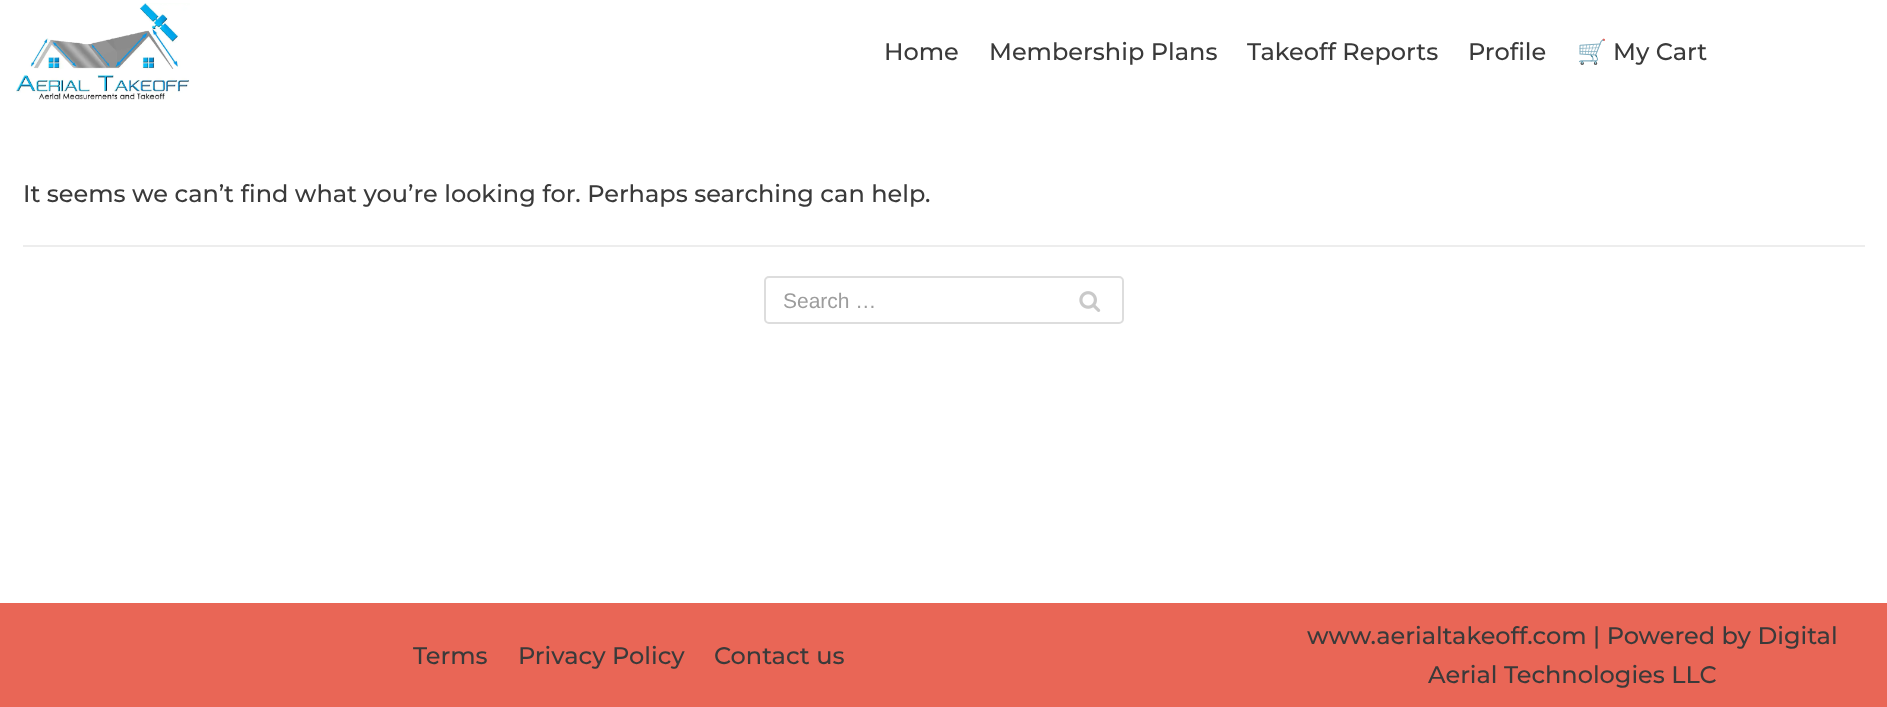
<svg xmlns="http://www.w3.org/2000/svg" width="1887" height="707">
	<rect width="100%" height="100%" fill="#FFFFFF" />
	<image x="16" y="3" width="174" height="97" href="assets/img1.png" />
	<g font-family="Montserrat" font-size="24" font-weight="500" fill="#3A3A3A">
		<text x="884" y="60">Home</text>
		<text x="989" y="60">Membership Plans</text>
		<text x="1247" y="60">Takeoff Reports</text>
		<text x="1468" y="60">Profile</text>
	</g>
	<text x="1577" y="60" font-family="Noto Color Emoji" font-size="24" fill="#3A3A3A">🛒</text>
	<g font-family="Montserrat" font-size="24" font-weight="500" fill="#3A3A3A">
		<text x="1613" y="60">My Cart</text>
		<text x="23" y="202">It seems we can’t find what you’re looking for. Perhaps searching can help.</text>
	</g>
	<rect x="23" y="245" width="1842" height="2" fill="#EDEDED" />
	<rect x="765" y="277" width="358" height="46" rx="4" fill="none" stroke="#DDDDDD" stroke-width="2" />
	<text x="783" y="308" font-family="Liberation Sans" font-size="21" fill="#9D9D9D">Search …</text>
	<image x="1079" y="291" width="22" height="21" href="assets/img2.png" />
	<rect x="0" y="603" width="1887" height="104" fill="#E96656" />
	<g font-family="Montserrat" font-size="24" font-weight="500" fill="#3A3A3A">
		<text x="413" y="664">Terms</text>
		<text x="518" y="664">Privacy Policy</text>
		<text x="714" y="664">Contact us</text>
		<text x="1307" y="644">www.aerialtakeoff.com | Powered by Digital</text>
		<text x="1428" y="683">Aerial Technologies LLC</text>
	</g>
</svg>
